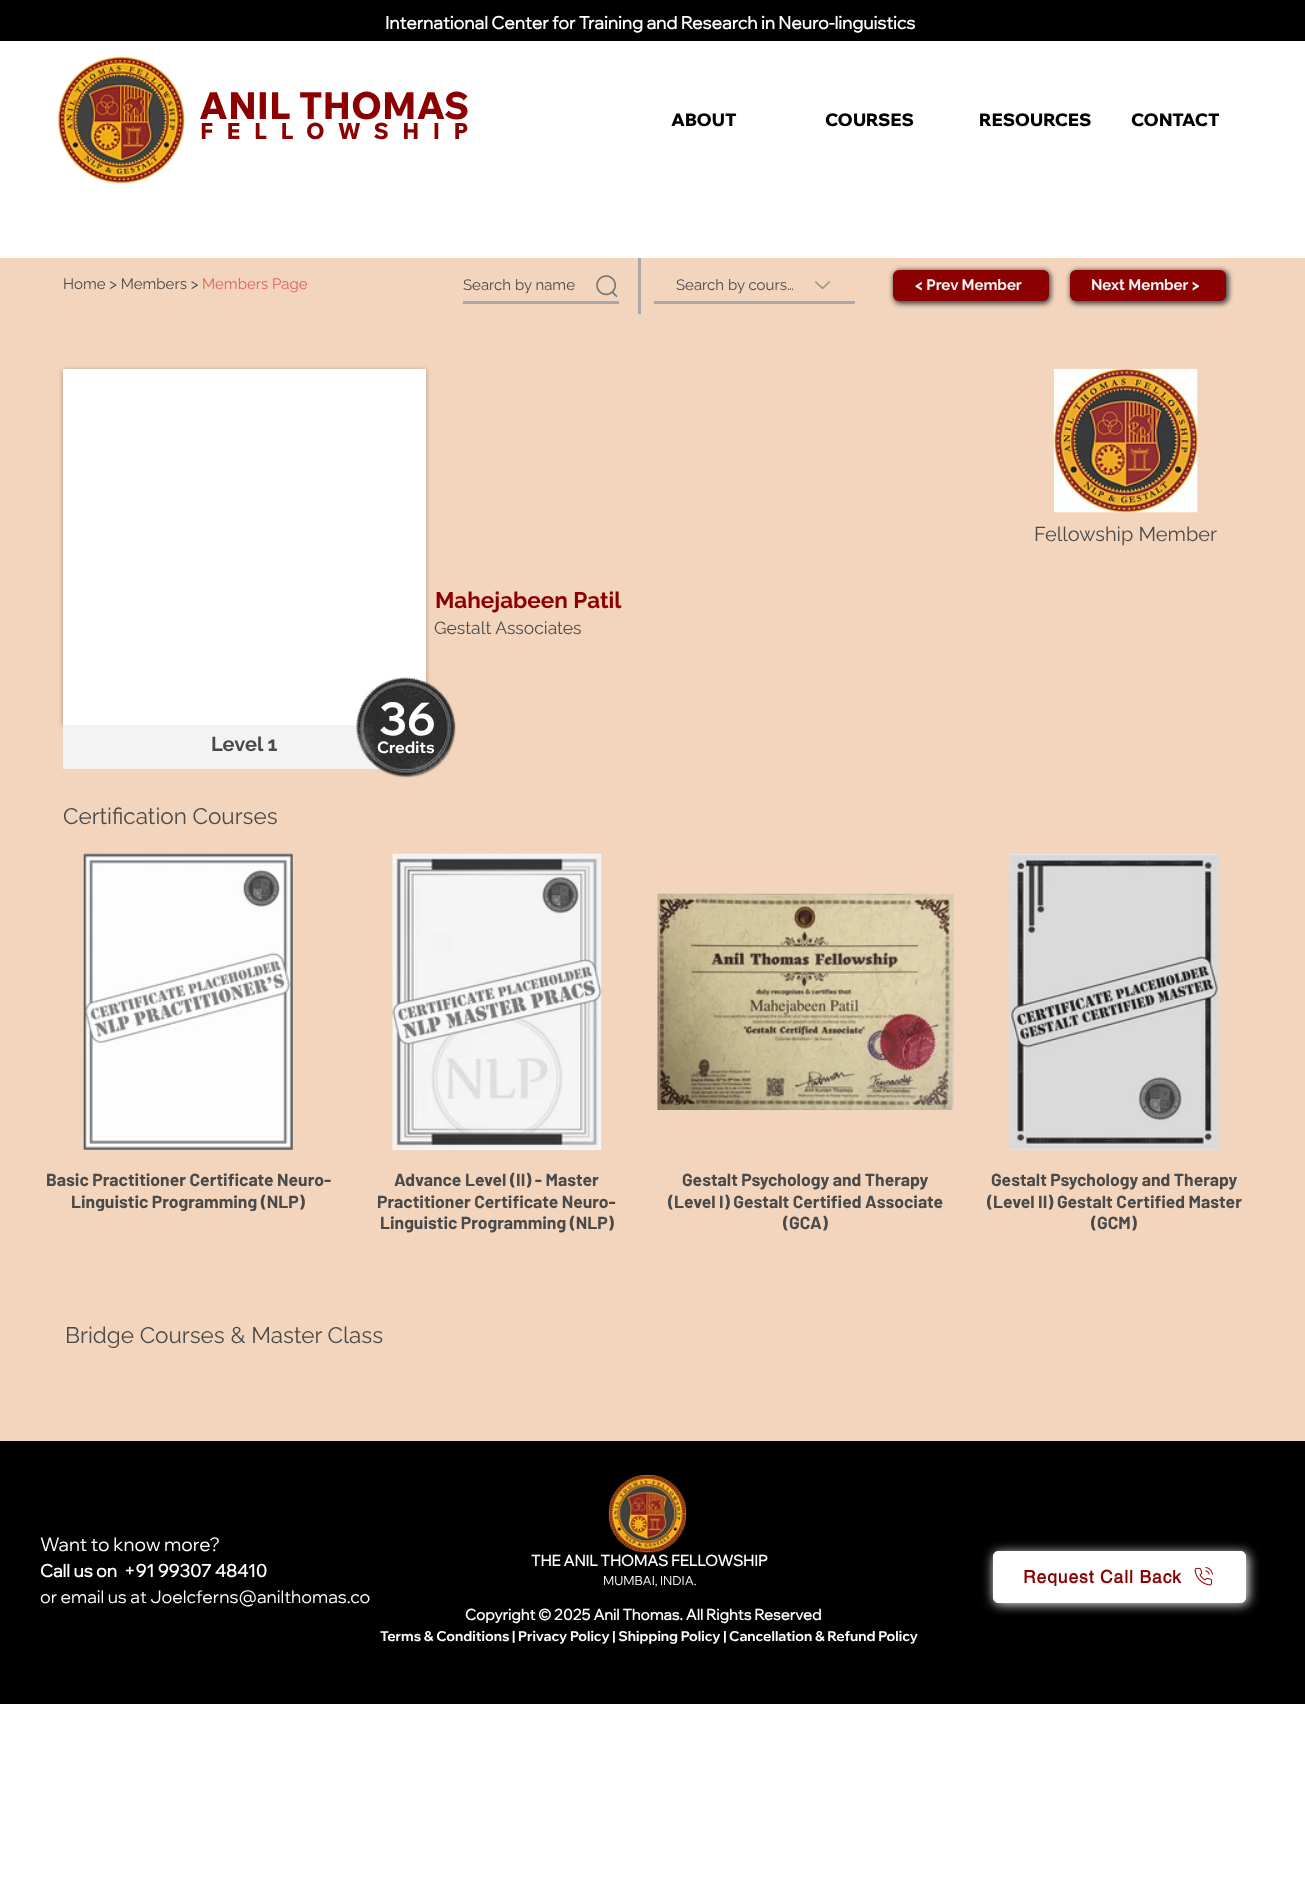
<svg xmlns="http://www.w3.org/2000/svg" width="1305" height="1878">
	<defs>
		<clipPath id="clip1"><rect x="40" y="1169" width="296" height="42" /></clipPath>
		<clipPath id="clip2"><rect x="1023" y="1566" width="158" height="20" /></clipPath>
	</defs>
	<rect width="100%" height="100%" fill="#FFFFFF" />
	<rect x="0" y="0" width="1305" height="41" fill="#000000" />
	<text x="385" y="29" font-family="'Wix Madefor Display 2'" font-size="17.5" font-weight="700" fill="#FFFFFE">International Center for Training and Research in Neuro-linguistics</text>
	<image x="57" y="56" width="129" height="128" href="assets/img1.png" />
	<text x="199" y="119" font-family="Wix Madefor Text" font-size="37.5" font-weight="800" fill="#8B0000">ANIL THOMAS</text>
	<text x="200" y="139" font-family="Wix Madefor Text" font-size="22.5" font-weight="800" letter-spacing="13.5" fill="#8B0000">FELLOWSHIP</text>
	<g font-family="Wix Madefor Display" font-size="17.5" font-weight="800" fill="#000000">
		<text x="671" y="126">ABOUT</text>
		<text x="825" y="126">COURSES</text>
		<text x="979" y="126">RESOURCES</text>
		<text x="1131" y="126">CONTACT</text>
	</g>
	<rect x="0" y="258" width="1305" height="1183" fill="#F3D5BD" />
	<text x="63" y="289" font-family="Raleway" font-size="15" fill="#4A4A4A">Home &gt; Members &gt;</text>
	<text x="202" y="289" font-family="Raleway" font-size="15" fill="#E25F5F">Members Page</text>
	<path d="M463 301V304H619V273V301Z" fill="#AAA8A8" />
	<text x="463" y="290" font-family="Raleway" font-size="15" fill="#4A4A4A">Search by name</text>
	<image x="596" y="275" width="22" height="23" href="assets/img2.png" />
	<rect x="638" y="258" width="3" height="56" fill="#AAA8A8" />
	<rect x="654" y="301" width="201" height="3" fill="#AAA8A8" />
	<text x="676" y="290" font-family="Raleway" font-size="15" fill="#4A4A4A">Search by cours…</text>
	<image x="815" y="281" width="15" height="9" href="assets/img3.png" />
	<rect x="893" y="270" width="158" height="34" rx="8" fill="#4A4A4A" filter="blur(2.5px)" />
	<rect x="893" y="270" width="156" height="31" rx="6" fill="#8B0000" />
	<text x="915" y="290" font-family="Raleway" font-size="15" font-weight="700" fill="#F3F3F3">&lt; Prev Member</text>
	<rect x="1070" y="270" width="159" height="34" rx="8" fill="#4A4A4A" filter="blur(2.5px)" />
	<rect x="1070" y="270" width="156" height="31" rx="6" fill="#8B0000" />
	<text x="1091" y="290" font-family="Raleway" font-size="15" font-weight="700" fill="#F3F3F3">Next Member &gt;</text>
	<rect x="63" y="370" width="363" height="356" fill="#000000" fill-opacity="0.3" filter="blur(2.5px)" />
	<rect x="63" y="369" width="363" height="356" fill="#FFFFFF" />
	<image x="1053" y="368" width="145" height="145" href="assets/img4.png" />
	<text x="1034" y="541" font-family="Raleway" font-size="20" fill="#4A4A4A">Fellowship Member</text>
	<text x="435" y="608" font-family="Raleway" font-size="22.5" font-weight="700" fill="#8B0000">Mahejabeen Patil</text>
	<text x="434" y="634" font-family="Raleway" font-size="17.5" fill="#4A4A4A">Gestalt Associates</text>
	<rect x="63" y="725" width="363" height="44" fill="#F3F3F3" />
	<text x="211" y="751" font-family="Raleway" font-size="20" font-weight="700" fill="#4A4A4A">Level 1</text>
	<image x="356" y="677" width="100" height="101" href="assets/img5.png" />
	<text x="379" y="735" font-family="Wix Madefor Display" font-size="45" font-weight="700" fill="#FFFFFE">36</text>
	<text x="377" y="753" font-family="Wix Madefor Display" font-size="16" font-weight="700" fill="#FFFFFE">Credits</text>
	<text x="63" y="824" font-family="Raleway" font-size="22.5" fill="#4A4A4A">Certification Courses</text>
	<rect x="292" y="854" width="1" height="296" fill="#AAA8A8" />
	<image x="83" y="853" width="210" height="297" href="assets/img6.png" />
	<text x="46" y="1186" font-family="Barlow" font-size="17.5" font-weight="700" fill="#4A4A4A">Basic Practitioner Certificate Neuro-</text>
	<g clip-path="url(#clip1)">
		<text x="71" y="1208" font-family="Barlow" font-size="17.5" font-weight="700" fill="#4A4A4A">Linguistic Programming (NLP)</text>
	</g>
	<image x="392" y="853" width="210" height="297" href="assets/img7.png" />
	<g font-family="Barlow" font-size="17.5" font-weight="700" fill="#4A4A4A">
		<text x="394" y="1186">Advance Level (II) - Master</text>
		<text x="377" y="1208">Practitioner Certificate Neuro-</text>
		<text x="380" y="1229">Linguistic Programming (NLP)</text>
	</g>
	<image x="657" y="893" width="297" height="217" href="assets/img8.png" />
	<g font-family="Barlow" font-size="17.5" font-weight="700" fill="#4A4A4A">
		<text x="682" y="1186">Gestalt Psychology and Therapy</text>
		<text x="668" y="1208">(Level I) Gestalt Certified Associate</text>
		<text x="783" y="1229">(GCA)</text>
	</g>
	<image x="1010" y="853" width="209" height="297" href="assets/img9.png" />
	<g font-family="Barlow" font-size="17.5" font-weight="700" fill="#4A4A4A">
		<text x="991" y="1186">Gestalt Psychology and Therapy</text>
		<text x="987" y="1208">(Level II) Gestalt Certified Master</text>
		<text x="1091" y="1229">(GCM)</text>
	</g>
	<text x="65" y="1343" font-family="Raleway" font-size="22.5" fill="#4A4A4A">Bridge Courses &amp; Master Class</text>
	<rect x="0" y="1441" width="1305" height="263" fill="#000000" />
	<text x="40" y="1551" font-family="Wix Madefor Display" font-size="18.75" fill="#FFFFFE">Want to know more?</text>
	<text x="40" y="1577" font-family="'Wix Madefor Display 2'" font-size="17.5" font-weight="700" fill="#FFFFFE" xml:space="preserve">Call us on  +91 99307 48410</text>
	<text x="40" y="1603" font-family="Wix Madefor Display" font-size="17.5" fill="#FFFFFE">or email us at Joelcferns@anilthomas.co</text>
	<image x="608" y="1475" width="79" height="78" href="assets/img10.png" />
	<text x="531" y="1566" font-family="'Wix Madefor Display 2'" font-size="15" font-weight="700" fill="#FFFFFE">THE ANIL THOMAS FELLOWSHIP</text>
	<text x="603" y="1585" font-family="Wix Madefor Display" font-size="12.5" fill="#FFFFFE">MUMBAI, INDIA.</text>
	<rect x="994" y="1553" width="254" height="51" rx="5" fill="#FFFFFF" filter="blur(6px)" />
	<rect x="993.5" y="1551.5" width="252" height="51" rx="4.5" fill="#FFFFFF" stroke="#FFFFFF" />
	<g clip-path="url(#clip2)">
		<text x="1023" y="1583" font-family="helvetica" font-size="17.5" font-weight="700" letter-spacing="0.9" fill="#8B0000">Request</text>
	</g>
	<text x="1100" y="1583" font-family="helvetica" font-size="17.5" font-weight="700" letter-spacing="0.9" fill="#8B0000">Call Back</text>
	<image x="1194" y="1567" width="19" height="19" href="assets/img11.png" />
	<text x="465" y="1620" font-family="'Wix Madefor Display 2'" font-size="15" font-weight="700" fill="#FFFFFE">Copyright © 2025 Anil Thomas. All Rights Reserved</text>
	<text x="380" y="1641" font-family="'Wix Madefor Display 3'" font-size="13.75" font-weight="700" fill="#FFFFFE">Terms &amp; Conditions | Privacy Policy | Shipping Policy | Cancellation &amp; Refund Policy</text>
</svg>
